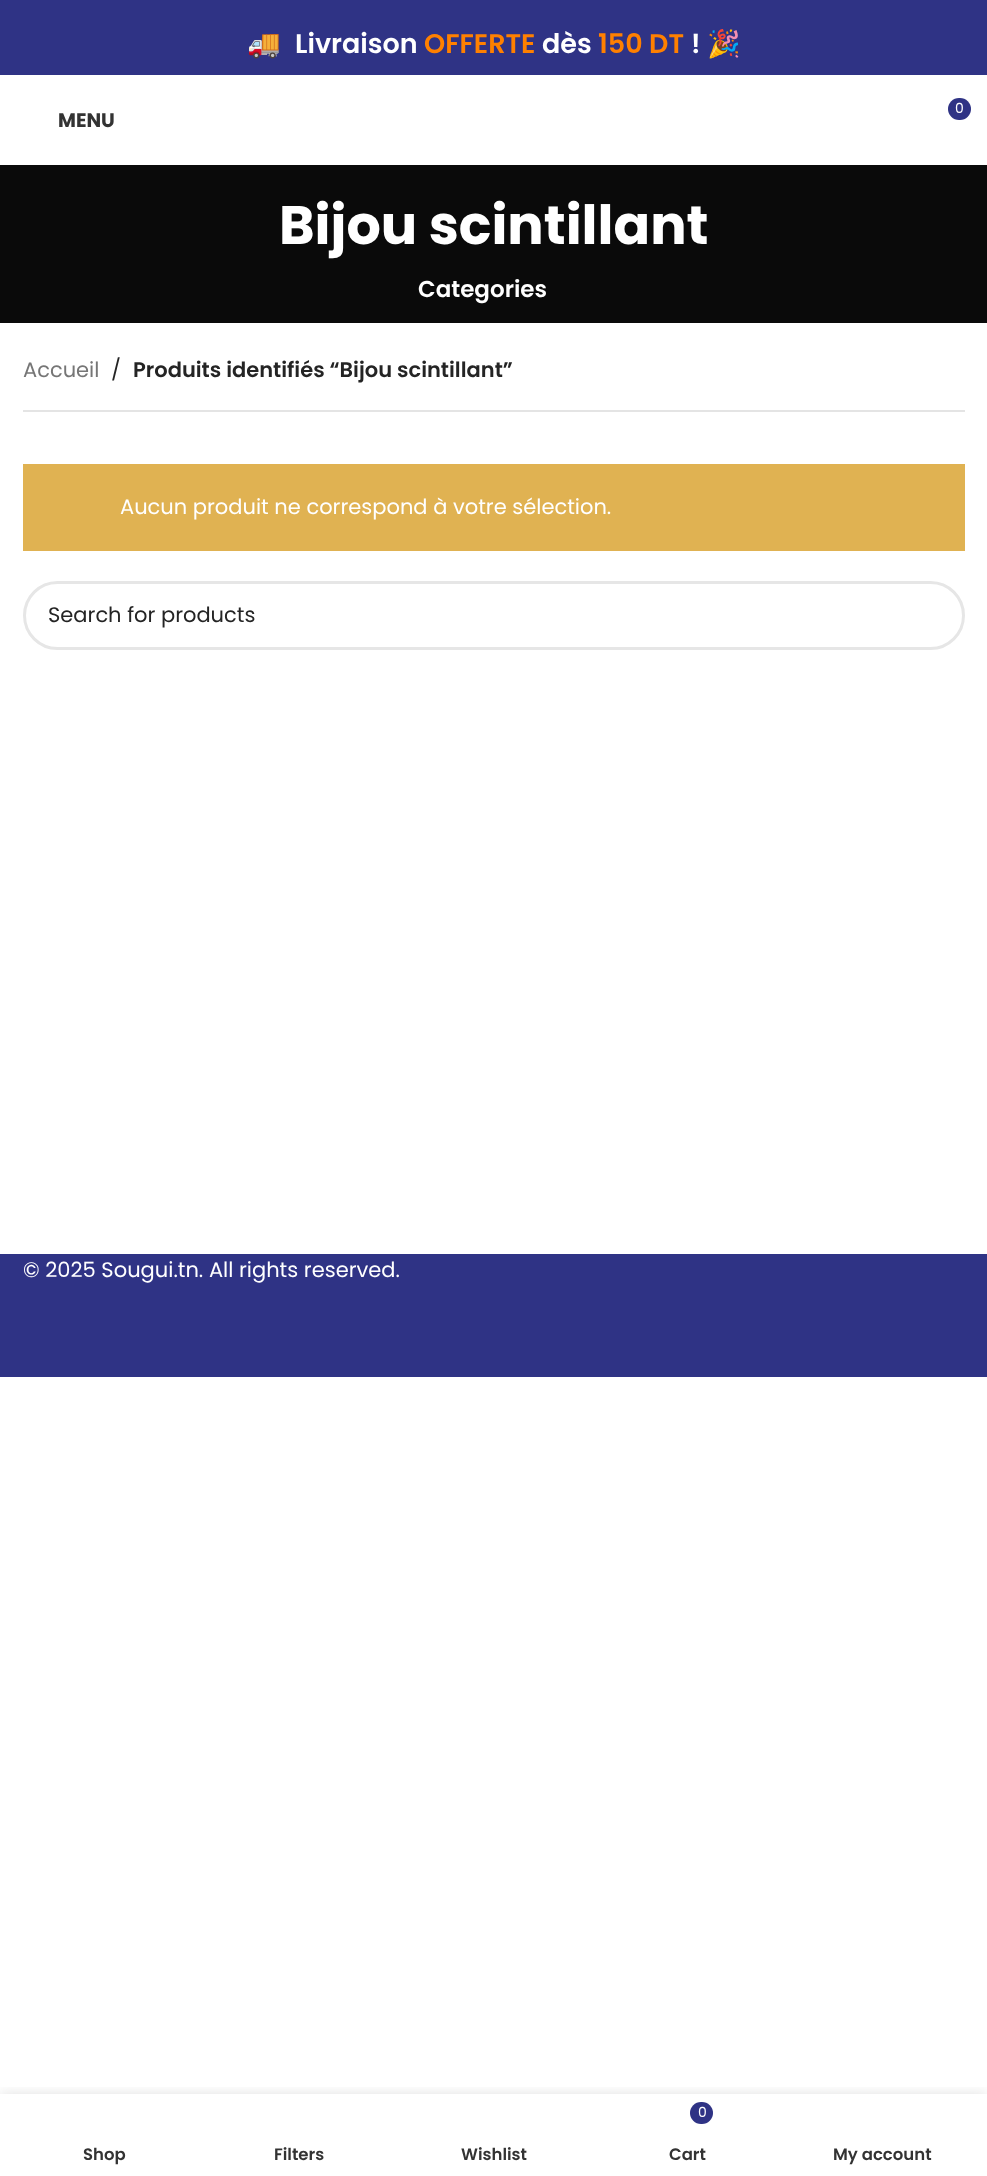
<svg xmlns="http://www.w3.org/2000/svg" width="987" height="2176">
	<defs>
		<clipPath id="clip1"><rect x="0" y="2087" width="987" height="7" /></clipPath>
	</defs>
	<rect width="100%" height="100%" fill="#FFFFFF" />
	<rect x="0" y="0" width="987" height="75" fill="#2F3385" />
	<text x="247" y="53" font-family="Noto Color Emoji" font-size="27" font-weight="700" fill="#FFFFFF">🚚</text>
	<text x="295" y="53" font-family="Poppins" font-size="27" font-weight="600" fill="#FFFFFF">Livraison</text>
	<text x="424" y="53" font-family="Poppins" font-size="27" font-weight="600" fill="#FF8000">OFFERTE</text>
	<text x="542" y="53" font-family="Poppins" font-size="27" font-weight="600" fill="#FFFFFF">dès</text>
	<text x="598" y="53" font-family="Poppins" font-size="27" font-weight="600" fill="#FF8000">150 DT</text>
	<text x="691" y="53" font-family="Poppins" font-size="27" font-weight="600" fill="#FFFFFF">!</text>
	<text x="707" y="53" font-family="Noto Color Emoji" font-size="27" font-weight="700" fill="#FFFFFF">🎉</text>
	<rect x="948" y="98" width="23" height="22" rx="11" fill="#2F3385" />
	<text x="955" y="113" font-family="Poppins" font-size="14" fill="#FFFFFF">0</text>
	<text x="58" y="127" font-family="Poppins" font-size="19.5" font-weight="700" fill="#333333">MENU</text>
	<rect x="0" y="165" width="987" height="158" fill="#0A0A0A" />
	<text x="279" y="244" font-family="Poppins" font-size="54" font-weight="700" fill="#FFFFFF">Bijou scintillant</text>
	<text x="418" y="297" font-family="Poppins" font-size="23" font-weight="600" fill="#FFFFFF">Categories</text>
	<rect x="23" y="410" width="942" height="2" fill="#E4E4E4" />
	<text x="23" y="377" font-family="Poppins" font-size="21" fill="#767676">Accueil</text>
	<text x="111" y="377" font-family="Poppins" font-size="21" fill="#242424">/</text>
	<text x="133" y="377" font-family="Poppins" font-size="21" font-weight="600" fill="#242424">Produits identifiés “Bijou scintillant”</text>
	<rect x="23" y="464" width="942" height="87" fill="#E0B252" />
	<text x="120" y="514" font-family="Poppins" font-size="21" fill="#FFFFFF">Aucun produit ne correspond à votre sélection.</text>
	<rect x="24.5" y="582.5" width="939" height="66" rx="33" fill="none" stroke="#E6E6E6" stroke-width="3" />
	<text x="48" y="622" font-family="Poppins" font-size="21" fill="#242424">Search for products</text>
	<rect x="0" y="1254" width="987" height="123" fill="#2F3385" />
	<text x="23" y="1277" font-family="Poppins" font-size="21" fill="#FFFFFF">© 2025 Sougui.tn. All rights reserved.</text>
	<g clip-path="url(#clip1)">
		<rect x="0" y="2094" width="987" height="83" fill="#000000" fill-opacity="0.12" filter="blur(7px)" />
	</g>
	<g font-family="Poppins" font-size="16.5" font-weight="600" fill="#333333">
		<text x="83" y="2160">Shop</text>
		<text x="274" y="2160">Filters</text>
		<text x="461" y="2160">Wishlist</text>
	</g>
	<rect x="690" y="2102" width="23" height="22" rx="11" fill="#2F3385" />
	<text x="698" y="2117" font-family="Poppins" font-size="14" fill="#FFFFFF">0</text>
	<g font-family="Poppins" font-size="16.5" font-weight="600" fill="#333333">
		<text x="669" y="2160">Cart</text>
		<text x="833" y="2160">My account</text>
	</g>
</svg>
